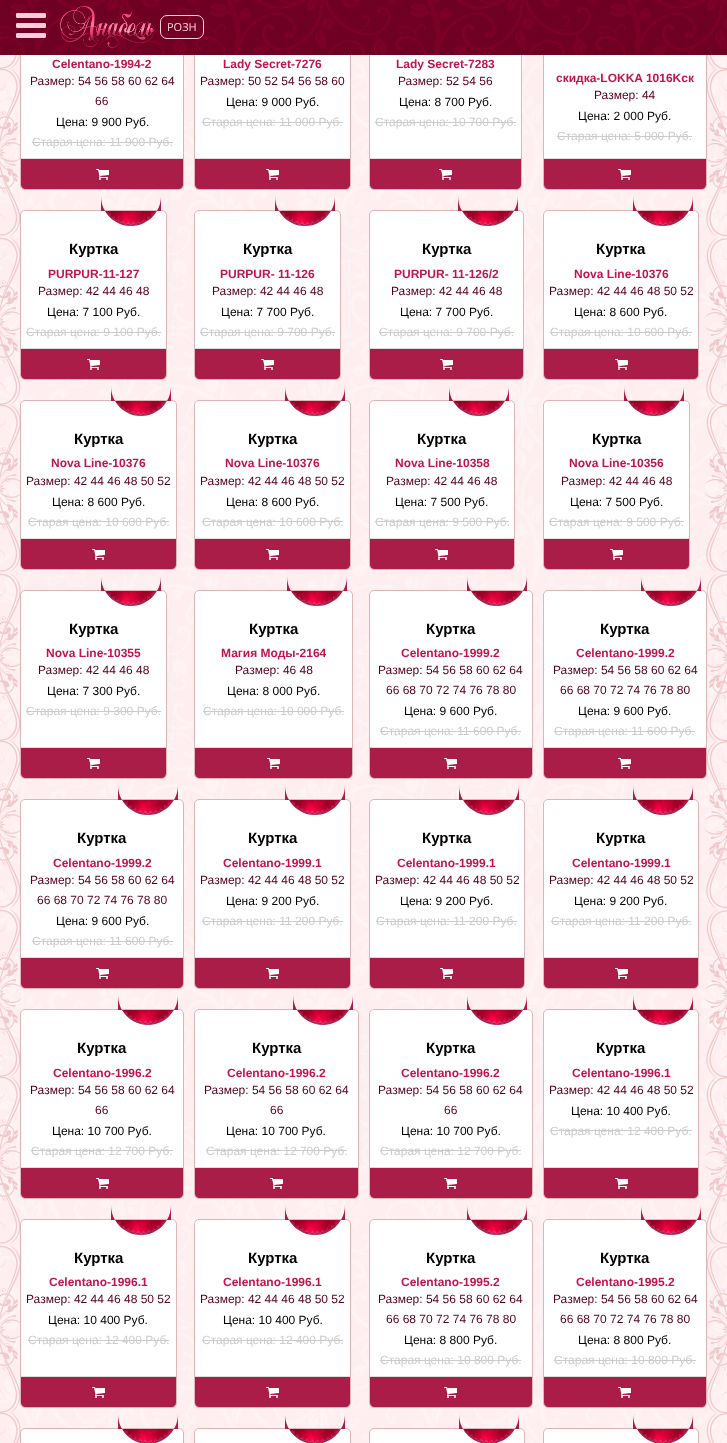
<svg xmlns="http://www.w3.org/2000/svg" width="727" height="1443">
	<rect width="100%" height="100%" fill="#FFFFFF" />
	<image x="0" y="55" width="727" height="1388" href="assets/img4.png" />
	<image x="0" y="55" width="23" height="1388" href="assets/img5.png" />
	<rect x="20.5" y="1.5" width="163" height="188" rx="4.5" fill="#FFFFFF" stroke="#DFB5B5" />
	<rect x="194.5" y="1.5" width="156" height="188" rx="4.5" fill="#FFFFFF" stroke="#DFB5B5" />
	<rect x="369.5" y="1.5" width="152" height="188" rx="4.5" fill="#FFFFFF" stroke="#DFB5B5" />
	<image x="704" y="55" width="23" height="1388" href="assets/img27.png" />
	<rect x="543.5" y="1.5" width="163" height="188" rx="4.5" fill="#FFFFFF" stroke="#DFB5B5" />
	<image x="0" y="0" width="727" height="55" href="assets/img1.png" />
	<image x="16" y="13" width="30" height="25" href="assets/img2.png" />
	<image x="60" y="6" width="95" height="42" href="assets/img3.png" />
	<rect x="160.5" y="15.5" width="43" height="23" rx="6.5" fill="none" stroke="#FFD2DB" />
	<text x="167" y="31" font-family="Open Sans" font-size="11" fill="#FFD2DB">РОЗН</text>
	<text x="52" y="68" font-family="Liberation Sans" font-size="12" font-weight="700" fill="#C5144B">Celentano-1994-2</text>
	<g font-family="Liberation Sans" font-size="12" fill="#57011C">
		<text x="30" y="85">Размер: 54 56 58 60 62 64</text>
		<text x="95" y="105">66</text>
	</g>
	<text x="56" y="126" font-family="Liberation Sans" font-size="12" fill="#000000">Цена: 9 900 Руб.</text>
	<text x="32" y="146" font-family="Liberation Sans" font-size="12" fill="#CCCCCC">Старая цена: 11 900 Руб.</text>
	<rect x="32" y="142" width="141" height="1" fill="#CCCCCC" />
	<rect x="21" y="158" width="162" height="1" fill="#DDDDDD" />
	<path d="M21 159H183V185C183 187 181 189 179 189H25C23 189 21 187 21 185Z" fill="#AB1D49" />
	<image x="96" y="169" width="13" height="11" href="assets/img6.png" />
	<text x="223" y="68" font-family="Liberation Sans" font-size="12" font-weight="700" fill="#C5144B">Lady Secret-7276</text>
	<text x="200" y="85" font-family="Liberation Sans" font-size="12" fill="#57011C">Размер: 50 52 54 56 58 60</text>
	<text x="226" y="106" font-family="Liberation Sans" font-size="12" fill="#000000">Цена: 9 000 Руб.</text>
	<text x="202" y="126" font-family="Liberation Sans" font-size="12" fill="#CCCCCC">Старая цена: 11 000 Руб.</text>
	<rect x="202" y="122" width="141" height="1" fill="#CCCCCC" />
	<rect x="195" y="158" width="155" height="1" fill="#DDDDDD" />
	<path d="M195 159H350V185C350 187 348 189 346 189H199C197 189 195 187 195 185Z" fill="#AB1D49" />
	<image x="266" y="169" width="13" height="11" href="assets/img6.png" />
	<text x="396" y="68" font-family="Liberation Sans" font-size="12" font-weight="700" fill="#C5144B">Lady Secret-7283</text>
	<text x="398" y="85" font-family="Liberation Sans" font-size="12" fill="#57011C">Размер: 52 54 56</text>
	<text x="399" y="106" font-family="Liberation Sans" font-size="12" fill="#000000">Цена: 8 700 Руб.</text>
	<text x="375" y="126" font-family="Liberation Sans" font-size="12" fill="#CCCCCC">Старая цена: 10 700 Руб.</text>
	<rect x="375" y="122" width="141" height="1" fill="#CCCCCC" />
	<rect x="370" y="158" width="151" height="1" fill="#DDDDDD" />
	<path d="M370 159H521V185C521 187 519 189 517 189H374C372 189 370 187 370 185Z" fill="#AB1D49" />
	<image x="439" y="169" width="13" height="11" href="assets/img6.png" />
	<text x="556" y="82" font-family="Liberation Sans" font-size="12" font-weight="700" fill="#C5144B">скидка-LOKKA 1016Kск</text>
	<text x="594" y="99" font-family="Liberation Sans" font-size="12" fill="#57011C">Размер: 44</text>
	<text x="578" y="120" font-family="Liberation Sans" font-size="12" fill="#000000">Цена: 2 000 Руб.</text>
	<text x="557" y="140" font-family="Liberation Sans" font-size="12" fill="#CCCCCC">Старая цена: 5 000 Руб.</text>
	<rect x="557" y="136" width="135" height="1" fill="#CCCCCC" />
	<rect x="544" y="158" width="162" height="1" fill="#DDDDDD" />
	<path d="M544 159H706V185C706 187 704 189 702 189H548C546 189 544 187 544 185Z" fill="#AB1D49" />
	<image x="618" y="169" width="13" height="11" href="assets/img6.png" />
	<rect x="20.5" y="210.5" width="146" height="169" rx="4.5" fill="#FFFFFF" stroke="#DFB5B5" />
	<path d="M101 211H161V196C161 212.5 147.5 226 131 226C114.5 226 101 212.5 101 196Z" fill="#AB1D49" />
	<image x="106" y="211" width="50" height="15" href="assets/img7.png" />
	<text x="69" y="254" font-family="Liberation Sans" font-size="15" font-weight="700" fill="#000000">Куртка</text>
	<text x="48" y="278" font-family="Liberation Sans" font-size="12" font-weight="700" fill="#C5144B">PURPUR-11-127</text>
	<text x="38" y="295" font-family="Liberation Sans" font-size="12" fill="#57011C">Размер: 42 44 46 48</text>
	<text x="47" y="316" font-family="Liberation Sans" font-size="12" fill="#000000">Цена: 7 100 Руб.</text>
	<text x="26" y="336" font-family="Liberation Sans" font-size="12" fill="#CCCCCC">Старая цена: 9 100 Руб.</text>
	<rect x="26" y="332" width="135" height="1" fill="#CCCCCC" />
	<rect x="21" y="348" width="145" height="1" fill="#DDDDDD" />
	<path d="M21 349H166V375C166 377 164 379 162 379H25C23 379 21 377 21 375Z" fill="#AB1D49" />
	<image x="87" y="359" width="13" height="11" href="assets/img6.png" />
	<rect x="194.5" y="210.5" width="146" height="169" rx="4.5" fill="#FFFFFF" stroke="#DFB5B5" />
	<path d="M275 211H335V196C335 212.5 321.5 226 305 226C288.5 226 275 212.5 275 196Z" fill="#AB1D49" />
	<image x="280" y="211" width="50" height="15" href="assets/img8.png" />
	<text x="243" y="254" font-family="Liberation Sans" font-size="15" font-weight="700" fill="#000000">Куртка</text>
	<text x="220" y="278" font-family="Liberation Sans" font-size="12" font-weight="700" fill="#C5144B">PURPUR- 11-126</text>
	<text x="212" y="295" font-family="Liberation Sans" font-size="12" fill="#57011C">Размер: 42 44 46 48</text>
	<text x="221" y="316" font-family="Liberation Sans" font-size="12" fill="#000000">Цена: 7 700 Руб.</text>
	<text x="200" y="336" font-family="Liberation Sans" font-size="12" fill="#CCCCCC">Старая цена: 9 700 Руб.</text>
	<rect x="200" y="332" width="135" height="1" fill="#CCCCCC" />
	<rect x="195" y="348" width="145" height="1" fill="#DDDDDD" />
	<path d="M195 349H340V375C340 377 338 379 336 379H199C197 379 195 377 195 375Z" fill="#AB1D49" />
	<image x="261" y="359" width="13" height="11" href="assets/img6.png" />
	<rect x="369.5" y="210.5" width="154" height="169" rx="4.5" fill="#FFFFFF" stroke="#DFB5B5" />
	<path d="M458 211H518V196C518 212.5 504.5 226 488 226C471.5 226 458 212.5 458 196Z" fill="#AB1D49" />
	<image x="463" y="211" width="50" height="15" href="assets/img9.png" />
	<text x="422" y="254" font-family="Liberation Sans" font-size="15" font-weight="700" fill="#000000">Куртка</text>
	<text x="394" y="278" font-family="Liberation Sans" font-size="12" font-weight="700" fill="#C5144B">PURPUR- 11-126/2</text>
	<text x="391" y="295" font-family="Liberation Sans" font-size="12" fill="#57011C">Размер: 42 44 46 48</text>
	<text x="400" y="316" font-family="Liberation Sans" font-size="12" fill="#000000">Цена: 7 700 Руб.</text>
	<text x="379" y="336" font-family="Liberation Sans" font-size="12" fill="#CCCCCC">Старая цена: 9 700 Руб.</text>
	<rect x="379" y="332" width="135" height="1" fill="#CCCCCC" />
	<rect x="370" y="348" width="153" height="1" fill="#DDDDDD" />
	<path d="M370 349H523V375C523 377 521 379 519 379H374C372 379 370 377 370 375Z" fill="#AB1D49" />
	<image x="440" y="359" width="13" height="11" href="assets/img6.png" />
	<rect x="543.5" y="210.5" width="155" height="169" rx="4.5" fill="#FFFFFF" stroke="#DFB5B5" />
	<path d="M633 211H693V196C693 212.5 679.5 226 663 226C646.5 226 633 212.5 633 196Z" fill="#AB1D49" />
	<image x="638" y="211" width="50" height="15" href="assets/img10.png" />
	<text x="596" y="254" font-family="Liberation Sans" font-size="15" font-weight="700" fill="#000000">Куртка</text>
	<text x="574" y="278" font-family="Liberation Sans" font-size="12" font-weight="700" fill="#C5144B">Nova Line-10376</text>
	<text x="549" y="295" font-family="Liberation Sans" font-size="12" fill="#57011C">Размер: 42 44 46 48 50 52</text>
	<text x="574" y="316" font-family="Liberation Sans" font-size="12" fill="#000000">Цена: 8 600 Руб.</text>
	<text x="550" y="336" font-family="Liberation Sans" font-size="12" fill="#CCCCCC">Старая цена: 10 600 Руб.</text>
	<rect x="550" y="332" width="142" height="1" fill="#CCCCCC" />
	<rect x="544" y="348" width="154" height="1" fill="#DDDDDD" />
	<path d="M544 349H698V375C698 377 696 379 694 379H548C546 379 544 377 544 375Z" fill="#AB1D49" />
	<image x="615" y="359" width="13" height="11" href="assets/img6.png" />
	<rect x="20.5" y="400.5" width="156" height="169" rx="4.5" fill="#FFFFFF" stroke="#DFB5B5" />
	<path d="M111 401H171V386C171 402.5 157.5 416 141 416C124.5 416 111 402.5 111 386Z" fill="#AB1D49" />
	<image x="116" y="401" width="50" height="15" href="assets/img11.png" />
	<text x="74" y="444" font-family="Liberation Sans" font-size="15" font-weight="700" fill="#000000">Куртка</text>
	<text x="51" y="467" font-family="Liberation Sans" font-size="12" font-weight="700" fill="#C5144B">Nova Line-10376</text>
	<text x="26" y="485" font-family="Liberation Sans" font-size="12" fill="#57011C">Размер: 42 44 46 48 50 52</text>
	<text x="52" y="506" font-family="Liberation Sans" font-size="12" fill="#000000">Цена: 8 600 Руб.</text>
	<text x="28" y="526" font-family="Liberation Sans" font-size="12" fill="#CCCCCC">Старая цена: 10 600 Руб.</text>
	<rect x="28" y="521" width="141" height="1" fill="#CCCCCC" />
	<rect x="21" y="538" width="155" height="1" fill="#DDDDDD" />
	<path d="M21 539H176V565C176 567 174 569 172 569H25C23 569 21 567 21 565Z" fill="#AB1D49" />
	<image x="92" y="549" width="13" height="11" href="assets/img6.png" />
	<rect x="194.5" y="400.5" width="156" height="169" rx="4.5" fill="#FFFFFF" stroke="#DFB5B5" />
	<path d="M285 401H345V386C345 402.5 331.5 416 315 416C298.5 416 285 402.5 285 386Z" fill="#AB1D49" />
	<image x="290" y="401" width="50" height="15" href="assets/img12.png" />
	<text x="248" y="444" font-family="Liberation Sans" font-size="15" font-weight="700" fill="#000000">Куртка</text>
	<text x="225" y="467" font-family="Liberation Sans" font-size="12" font-weight="700" fill="#C5144B">Nova Line-10376</text>
	<text x="200" y="485" font-family="Liberation Sans" font-size="12" fill="#57011C">Размер: 42 44 46 48 50 52</text>
	<text x="226" y="506" font-family="Liberation Sans" font-size="12" fill="#000000">Цена: 8 600 Руб.</text>
	<text x="202" y="526" font-family="Liberation Sans" font-size="12" fill="#CCCCCC">Старая цена: 10 600 Руб.</text>
	<rect x="202" y="521" width="141" height="1" fill="#CCCCCC" />
	<rect x="195" y="538" width="155" height="1" fill="#DDDDDD" />
	<path d="M195 539H350V565C350 567 348 569 346 569H199C197 569 195 567 195 565Z" fill="#AB1D49" />
	<image x="266" y="549" width="13" height="11" href="assets/img6.png" />
	<rect x="369.5" y="400.5" width="145" height="169" rx="4.5" fill="#FFFFFF" stroke="#DFB5B5" />
	<path d="M449 401H509V386C509 402.5 495.5 416 479 416C462.5 416 449 402.5 449 386Z" fill="#AB1D49" />
	<image x="454" y="401" width="50" height="15" href="assets/img13.png" />
	<text x="417" y="444" font-family="Liberation Sans" font-size="15" font-weight="700" fill="#000000">Куртка</text>
	<text x="395" y="467" font-family="Liberation Sans" font-size="12" font-weight="700" fill="#C5144B">Nova Line-10358</text>
	<text x="386" y="485" font-family="Liberation Sans" font-size="12" fill="#57011C">Размер: 42 44 46 48</text>
	<text x="395" y="506" font-family="Liberation Sans" font-size="12" fill="#000000">Цена: 7 500 Руб.</text>
	<text x="375" y="526" font-family="Liberation Sans" font-size="12" fill="#CCCCCC">Старая цена: 9 500 Руб.</text>
	<rect x="375" y="521" width="134" height="1" fill="#CCCCCC" />
	<rect x="370" y="538" width="144" height="1" fill="#DDDDDD" />
	<path d="M370 539H514V565C514 567 512 569 510 569H374C372 569 370 567 370 565Z" fill="#AB1D49" />
	<image x="435" y="549" width="13" height="11" href="assets/img6.png" />
	<rect x="543.5" y="400.5" width="146" height="169" rx="4.5" fill="#FFFFFF" stroke="#DFB5B5" />
	<path d="M624 401H684V386C684 402.5 670.5 416 654 416C637.5 416 624 402.5 624 386Z" fill="#AB1D49" />
	<image x="629" y="401" width="50" height="15" href="assets/img7.png" />
	<text x="592" y="444" font-family="Liberation Sans" font-size="15" font-weight="700" fill="#000000">Куртка</text>
	<text x="569" y="467" font-family="Liberation Sans" font-size="12" font-weight="700" fill="#C5144B">Nova Line-10356</text>
	<text x="561" y="485" font-family="Liberation Sans" font-size="12" fill="#57011C">Размер: 42 44 46 48</text>
	<text x="570" y="506" font-family="Liberation Sans" font-size="12" fill="#000000">Цена: 7 500 Руб.</text>
	<text x="549" y="526" font-family="Liberation Sans" font-size="12" fill="#CCCCCC">Старая цена: 9 500 Руб.</text>
	<rect x="549" y="521" width="135" height="1" fill="#CCCCCC" />
	<rect x="544" y="538" width="145" height="1" fill="#DDDDDD" />
	<path d="M544 539H689V565C689 567 687 569 685 569H548C546 569 544 567 544 565Z" fill="#AB1D49" />
	<image x="610" y="549" width="13" height="11" href="assets/img6.png" />
	<rect x="20.5" y="590.5" width="146" height="188" rx="4.5" fill="#FFFFFF" stroke="#DFB5B5" />
	<path d="M101 591H161V576C161 592.5 147.5 606 131 606C114.5 606 101 592.5 101 576Z" fill="#AB1D49" />
	<image x="106" y="591" width="50" height="15" href="assets/img7.png" />
	<text x="69" y="634" font-family="Liberation Sans" font-size="15" font-weight="700" fill="#000000">Куртка</text>
	<text x="46" y="657" font-family="Liberation Sans" font-size="12" font-weight="700" fill="#C5144B">Nova Line-10355</text>
	<text x="38" y="674" font-family="Liberation Sans" font-size="12" fill="#57011C">Размер: 42 44 46 48</text>
	<text x="47" y="695" font-family="Liberation Sans" font-size="12" fill="#000000">Цена: 7 300 Руб.</text>
	<text x="26" y="715" font-family="Liberation Sans" font-size="12" fill="#CCCCCC">Старая цена: 9 300 Руб.</text>
	<rect x="26" y="711" width="135" height="1" fill="#CCCCCC" />
	<rect x="21" y="747" width="145" height="1" fill="#DDDDDD" />
	<path d="M21 748H166V774C166 776 164 778 162 778H25C23 778 21 776 21 774Z" fill="#AB1D49" />
	<image x="87" y="758" width="13" height="11" href="assets/img6.png" />
	<rect x="194.5" y="590.5" width="158" height="188" rx="4.5" fill="#FFFFFF" stroke="#DFB5B5" />
	<path d="M287 591H347V576C347 592.5 333.5 606 317 606C300.5 606 287 592.5 287 576Z" fill="#AB1D49" />
	<image x="292" y="591" width="50" height="15" href="assets/img14.png" />
	<text x="249" y="634" font-family="Liberation Sans" font-size="15" font-weight="700" fill="#000000">Куртка</text>
	<text x="221" y="657" font-family="Liberation Sans" font-size="12" font-weight="700" fill="#C5144B">Магия Моды-2164</text>
	<text x="235" y="674" font-family="Liberation Sans" font-size="12" fill="#57011C">Размер: 46 48</text>
	<text x="227" y="695" font-family="Liberation Sans" font-size="12" fill="#000000">Цена: 8 000 Руб.</text>
	<text x="203" y="715" font-family="Liberation Sans" font-size="12" fill="#CCCCCC">Старая цена: 10 000 Руб.</text>
	<rect x="203" y="711" width="141" height="1" fill="#CCCCCC" />
	<rect x="195" y="747" width="157" height="1" fill="#DDDDDD" />
	<path d="M195 748H352V774C352 776 350 778 348 778H199C197 778 195 776 195 774Z" fill="#AB1D49" />
	<image x="267" y="758" width="13" height="11" href="assets/img6.png" />
	<rect x="369.5" y="590.5" width="163" height="188" rx="4.5" fill="#FFFFFF" stroke="#DFB5B5" />
	<path d="M467 591H527V576C527 592.5 513.5 606 497 606C480.5 606 467 592.5 467 576Z" fill="#AB1D49" />
	<image x="472" y="591" width="50" height="15" href="assets/img15.png" />
	<text x="426" y="634" font-family="Liberation Sans" font-size="15" font-weight="700" fill="#000000">Куртка</text>
	<text x="401" y="657" font-family="Liberation Sans" font-size="12" font-weight="700" fill="#C5144B">Celentano-1999.2</text>
	<g font-family="Liberation Sans" font-size="12" fill="#57011C">
		<text x="378" y="674">Размер: 54 56 58 60 62 64</text>
		<text x="386" y="694">66 68 70 72 74 76 78 80</text>
	</g>
	<text x="404" y="715" font-family="Liberation Sans" font-size="12" fill="#000000">Цена: 9 600 Руб.</text>
	<text x="380" y="735" font-family="Liberation Sans" font-size="12" fill="#CCCCCC">Старая цена: 11 600 Руб.</text>
	<rect x="380" y="731" width="141" height="1" fill="#CCCCCC" />
	<rect x="370" y="747" width="162" height="1" fill="#DDDDDD" />
	<path d="M370 748H532V774C532 776 530 778 528 778H374C372 778 370 776 370 774Z" fill="#AB1D49" />
	<image x="444" y="758" width="13" height="11" href="assets/img6.png" />
	<rect x="543.5" y="590.5" width="163" height="188" rx="4.5" fill="#FFFFFF" stroke="#DFB5B5" />
	<path d="M641 591H701V576C701 592.5 687.5 606 671 606C654.5 606 641 592.5 641 576Z" fill="#AB1D49" />
	<image x="646" y="591" width="50" height="15" href="assets/img16.png" />
	<text x="600" y="634" font-family="Liberation Sans" font-size="15" font-weight="700" fill="#000000">Куртка</text>
	<text x="576" y="657" font-family="Liberation Sans" font-size="12" font-weight="700" fill="#C5144B">Celentano-1999.2</text>
	<g font-family="Liberation Sans" font-size="12" fill="#57011C">
		<text x="553" y="674">Размер: 54 56 58 60 62 64</text>
		<text x="560" y="694">66 68 70 72 74 76 78 80</text>
	</g>
	<text x="578" y="715" font-family="Liberation Sans" font-size="12" fill="#000000">Цена: 9 600 Руб.</text>
	<text x="554" y="735" font-family="Liberation Sans" font-size="12" fill="#CCCCCC">Старая цена: 11 600 Руб.</text>
	<rect x="554" y="731" width="141" height="1" fill="#CCCCCC" />
	<rect x="544" y="747" width="162" height="1" fill="#DDDDDD" />
	<path d="M544 748H706V774C706 776 704 778 702 778H548C546 778 544 776 544 774Z" fill="#AB1D49" />
	<image x="618" y="758" width="13" height="11" href="assets/img6.png" />
	<rect x="20.5" y="799.5" width="163" height="189" rx="4.5" fill="#FFFFFF" stroke="#DFB5B5" />
	<path d="M118 800H178V785C178 801.5 164.5 815 148 815C131.5 815 118 801.5 118 785Z" fill="#AB1D49" />
	<image x="123" y="800" width="50" height="15" href="assets/img17.png" />
	<text x="77" y="843" font-family="Liberation Sans" font-size="15" font-weight="700" fill="#000000">Куртка</text>
	<text x="53" y="867" font-family="Liberation Sans" font-size="12" font-weight="700" fill="#C5144B">Celentano-1999.2</text>
	<g font-family="Liberation Sans" font-size="12" fill="#57011C">
		<text x="30" y="884">Размер: 54 56 58 60 62 64</text>
		<text x="37" y="904">66 68 70 72 74 76 78 80</text>
	</g>
	<text x="56" y="925" font-family="Liberation Sans" font-size="12" fill="#000000">Цена: 9 600 Руб.</text>
	<text x="32" y="945" font-family="Liberation Sans" font-size="12" fill="#CCCCCC">Старая цена: 11 600 Руб.</text>
	<rect x="32" y="941" width="141" height="1" fill="#CCCCCC" />
	<rect x="21" y="957" width="162" height="1" fill="#DDDDDD" />
	<path d="M21 958H183V984C183 986 181 988 179 988H25C23 988 21 986 21 984Z" fill="#AB1D49" />
	<image x="96" y="968" width="13" height="11" href="assets/img6.png" />
	<rect x="194.5" y="799.5" width="156" height="189" rx="4.5" fill="#FFFFFF" stroke="#DFB5B5" />
	<path d="M285 800H345V785C345 801.5 331.5 815 315 815C298.5 815 285 801.5 285 785Z" fill="#AB1D49" />
	<image x="290" y="800" width="50" height="15" href="assets/img18.png" />
	<text x="248" y="843" font-family="Liberation Sans" font-size="15" font-weight="700" fill="#000000">Куртка</text>
	<text x="223" y="867" font-family="Liberation Sans" font-size="12" font-weight="700" fill="#C5144B">Celentano-1999.1</text>
	<text x="200" y="884" font-family="Liberation Sans" font-size="12" fill="#57011C">Размер: 42 44 46 48 50 52</text>
	<text x="226" y="905" font-family="Liberation Sans" font-size="12" fill="#000000">Цена: 9 200 Руб.</text>
	<text x="202" y="925" font-family="Liberation Sans" font-size="12" fill="#CCCCCC">Старая цена: 11 200 Руб.</text>
	<rect x="202" y="921" width="141" height="1" fill="#CCCCCC" />
	<rect x="195" y="957" width="155" height="1" fill="#DDDDDD" />
	<path d="M195 958H350V984C350 986 348 988 346 988H199C197 988 195 986 195 984Z" fill="#AB1D49" />
	<image x="266" y="968" width="13" height="11" href="assets/img6.png" />
	<rect x="369.5" y="799.5" width="155" height="189" rx="4.5" fill="#FFFFFF" stroke="#DFB5B5" />
	<path d="M459 800H519V785C519 801.5 505.5 815 489 815C472.5 815 459 801.5 459 785Z" fill="#AB1D49" />
	<image x="464" y="800" width="50" height="15" href="assets/img19.png" />
	<text x="422" y="843" font-family="Liberation Sans" font-size="15" font-weight="700" fill="#000000">Куртка</text>
	<text x="397" y="867" font-family="Liberation Sans" font-size="12" font-weight="700" fill="#C5144B">Celentano-1999.1</text>
	<text x="375" y="884" font-family="Liberation Sans" font-size="12" fill="#57011C">Размер: 42 44 46 48 50 52</text>
	<text x="400" y="905" font-family="Liberation Sans" font-size="12" fill="#000000">Цена: 9 200 Руб.</text>
	<text x="376" y="925" font-family="Liberation Sans" font-size="12" fill="#CCCCCC">Старая цена: 11 200 Руб.</text>
	<rect x="376" y="921" width="141" height="1" fill="#CCCCCC" />
	<rect x="370" y="957" width="154" height="1" fill="#DDDDDD" />
	<path d="M370 958H524V984C524 986 522 988 520 988H374C372 988 370 986 370 984Z" fill="#AB1D49" />
	<image x="440" y="968" width="13" height="11" href="assets/img6.png" />
	<rect x="543.5" y="799.5" width="155" height="189" rx="4.5" fill="#FFFFFF" stroke="#DFB5B5" />
	<path d="M633 800H693V785C693 801.5 679.5 815 663 815C646.5 815 633 801.5 633 785Z" fill="#AB1D49" />
	<image x="638" y="800" width="50" height="15" href="assets/img20.png" />
	<text x="596" y="843" font-family="Liberation Sans" font-size="15" font-weight="700" fill="#000000">Куртка</text>
	<text x="572" y="867" font-family="Liberation Sans" font-size="12" font-weight="700" fill="#C5144B">Celentano-1999.1</text>
	<text x="549" y="884" font-family="Liberation Sans" font-size="12" fill="#57011C">Размер: 42 44 46 48 50 52</text>
	<text x="574" y="905" font-family="Liberation Sans" font-size="12" fill="#000000">Цена: 9 200 Руб.</text>
	<text x="551" y="925" font-family="Liberation Sans" font-size="12" fill="#CCCCCC">Старая цена: 11 200 Руб.</text>
	<rect x="551" y="921" width="140" height="1" fill="#CCCCCC" />
	<rect x="544" y="957" width="154" height="1" fill="#DDDDDD" />
	<path d="M544 958H698V984C698 986 696 988 694 988H548C546 988 544 986 544 984Z" fill="#AB1D49" />
	<image x="615" y="968" width="13" height="11" href="assets/img6.png" />
	<rect x="20.5" y="1009.5" width="163" height="189" rx="4.5" fill="#FFFFFF" stroke="#DFB5B5" />
	<path d="M118 1010H178V995C178 1011.5 164.5 1025 148 1025C131.5 1025 118 1011.5 118 995Z" fill="#AB1D49" />
	<image x="123" y="1010" width="50" height="15" href="assets/img21.png" />
	<text x="77" y="1053" font-family="Liberation Sans" font-size="15" font-weight="700" fill="#000000">Куртка</text>
	<text x="53" y="1077" font-family="Liberation Sans" font-size="12" font-weight="700" fill="#C5144B">Celentano-1996.2</text>
	<g font-family="Liberation Sans" font-size="12" fill="#57011C">
		<text x="30" y="1094">Размер: 54 56 58 60 62 64</text>
		<text x="95" y="1114">66</text>
	</g>
	<text x="52" y="1135" font-family="Liberation Sans" font-size="12" fill="#000000">Цена: 10 700 Руб.</text>
	<text x="31" y="1155" font-family="Liberation Sans" font-size="12" fill="#CCCCCC">Старая цена: 12 700 Руб.</text>
	<rect x="31" y="1150" width="142" height="1" fill="#CCCCCC" />
	<rect x="21" y="1167" width="162" height="1" fill="#DDDDDD" />
	<path d="M21 1168H183V1194C183 1196 181 1198 179 1198H25C23 1198 21 1196 21 1194Z" fill="#AB1D49" />
	<image x="96" y="1178" width="13" height="11" href="assets/img6.png" />
	<rect x="194.5" y="1009.5" width="164" height="189" rx="4.5" fill="#FFFFFF" stroke="#DFB5B5" />
	<path d="M293 1010H353V995C353 1011.5 339.5 1025 323 1025C306.5 1025 293 1011.5 293 995Z" fill="#AB1D49" />
	<image x="298" y="1010" width="50" height="15" href="assets/img22.png" />
	<text x="252" y="1053" font-family="Liberation Sans" font-size="15" font-weight="700" fill="#000000">Куртка</text>
	<text x="227" y="1077" font-family="Liberation Sans" font-size="12" font-weight="700" fill="#C5144B">Celentano-1996.2</text>
	<g font-family="Liberation Sans" font-size="12" fill="#57011C">
		<text x="204" y="1094">Размер: 54 56 58 60 62 64</text>
		<text x="270" y="1114">66</text>
	</g>
	<text x="226" y="1135" font-family="Liberation Sans" font-size="12" fill="#000000">Цена: 10 700 Руб.</text>
	<text x="206" y="1155" font-family="Liberation Sans" font-size="12" fill="#CCCCCC">Старая цена: 12 700 Руб.</text>
	<rect x="206" y="1150" width="141" height="1" fill="#CCCCCC" />
	<rect x="195" y="1167" width="163" height="1" fill="#DDDDDD" />
	<path d="M195 1168H358V1194C358 1196 356 1198 354 1198H199C197 1198 195 1196 195 1194Z" fill="#AB1D49" />
	<image x="270" y="1178" width="13" height="11" href="assets/img6.png" />
	<rect x="369.5" y="1009.5" width="163" height="189" rx="4.5" fill="#FFFFFF" stroke="#DFB5B5" />
	<path d="M467 1010H527V995C527 1011.5 513.5 1025 497 1025C480.5 1025 467 1011.5 467 995Z" fill="#AB1D49" />
	<image x="472" y="1010" width="50" height="15" href="assets/img15.png" />
	<text x="426" y="1053" font-family="Liberation Sans" font-size="15" font-weight="700" fill="#000000">Куртка</text>
	<text x="401" y="1077" font-family="Liberation Sans" font-size="12" font-weight="700" fill="#C5144B">Celentano-1996.2</text>
	<g font-family="Liberation Sans" font-size="12" fill="#57011C">
		<text x="378" y="1094">Размер: 54 56 58 60 62 64</text>
		<text x="444" y="1114">66</text>
	</g>
	<text x="401" y="1135" font-family="Liberation Sans" font-size="12" fill="#000000">Цена: 10 700 Руб.</text>
	<text x="380" y="1155" font-family="Liberation Sans" font-size="12" fill="#CCCCCC">Старая цена: 12 700 Руб.</text>
	<rect x="380" y="1150" width="141" height="1" fill="#CCCCCC" />
	<rect x="370" y="1167" width="162" height="1" fill="#DDDDDD" />
	<path d="M370 1168H532V1194C532 1196 530 1198 528 1198H374C372 1198 370 1196 370 1194Z" fill="#AB1D49" />
	<image x="444" y="1178" width="13" height="11" href="assets/img6.png" />
	<rect x="543.5" y="1009.5" width="155" height="189" rx="4.5" fill="#FFFFFF" stroke="#DFB5B5" />
	<path d="M633 1010H693V995C693 1011.5 679.5 1025 663 1025C646.5 1025 633 1011.5 633 995Z" fill="#AB1D49" />
	<image x="638" y="1010" width="50" height="15" href="assets/img10.png" />
	<text x="596" y="1053" font-family="Liberation Sans" font-size="15" font-weight="700" fill="#000000">Куртка</text>
	<text x="572" y="1077" font-family="Liberation Sans" font-size="12" font-weight="700" fill="#C5144B">Celentano-1996.1</text>
	<text x="549" y="1094" font-family="Liberation Sans" font-size="12" fill="#57011C">Размер: 42 44 46 48 50 52</text>
	<text x="571" y="1115" font-family="Liberation Sans" font-size="12" fill="#000000">Цена: 10 400 Руб.</text>
	<text x="550" y="1135" font-family="Liberation Sans" font-size="12" fill="#CCCCCC">Старая цена: 12 400 Руб.</text>
	<rect x="550" y="1130" width="142" height="1" fill="#CCCCCC" />
	<rect x="544" y="1167" width="154" height="1" fill="#DDDDDD" />
	<path d="M544 1168H698V1194C698 1196 696 1198 694 1198H548C546 1198 544 1196 544 1194Z" fill="#AB1D49" />
	<image x="615" y="1178" width="13" height="11" href="assets/img6.png" />
	<rect x="20.5" y="1219.5" width="156" height="188" rx="4.5" fill="#FFFFFF" stroke="#DFB5B5" />
	<path d="M111 1220H171V1205C171 1221.5 157.5 1235 141 1235C124.5 1235 111 1221.5 111 1205Z" fill="#AB1D49" />
	<image x="116" y="1220" width="50" height="15" href="assets/img11.png" />
	<text x="74" y="1263" font-family="Liberation Sans" font-size="15" font-weight="700" fill="#000000">Куртка</text>
	<text x="49" y="1286" font-family="Liberation Sans" font-size="12" font-weight="700" fill="#C5144B">Celentano-1996.1</text>
	<text x="26" y="1303" font-family="Liberation Sans" font-size="12" fill="#57011C">Размер: 42 44 46 48 50 52</text>
	<text x="48" y="1324" font-family="Liberation Sans" font-size="12" fill="#000000">Цена: 10 400 Руб.</text>
	<text x="28" y="1344" font-family="Liberation Sans" font-size="12" fill="#CCCCCC">Старая цена: 12 400 Руб.</text>
	<rect x="28" y="1340" width="141" height="1" fill="#CCCCCC" />
	<rect x="21" y="1376" width="155" height="1" fill="#DDDDDD" />
	<path d="M21 1377H176V1403C176 1405 174 1407 172 1407H25C23 1407 21 1405 21 1403Z" fill="#AB1D49" />
	<image x="92" y="1387" width="13" height="11" href="assets/img6.png" />
	<rect x="194.5" y="1219.5" width="156" height="188" rx="4.5" fill="#FFFFFF" stroke="#DFB5B5" />
	<path d="M285 1220H345V1205C345 1221.5 331.5 1235 315 1235C298.5 1235 285 1221.5 285 1205Z" fill="#AB1D49" />
	<image x="290" y="1220" width="50" height="15" href="assets/img12.png" />
	<text x="248" y="1263" font-family="Liberation Sans" font-size="15" font-weight="700" fill="#000000">Куртка</text>
	<text x="223" y="1286" font-family="Liberation Sans" font-size="12" font-weight="700" fill="#C5144B">Celentano-1996.1</text>
	<text x="200" y="1303" font-family="Liberation Sans" font-size="12" fill="#57011C">Размер: 42 44 46 48 50 52</text>
	<text x="223" y="1324" font-family="Liberation Sans" font-size="12" fill="#000000">Цена: 10 400 Руб.</text>
	<text x="202" y="1344" font-family="Liberation Sans" font-size="12" fill="#CCCCCC">Старая цена: 12 400 Руб.</text>
	<rect x="202" y="1340" width="141" height="1" fill="#CCCCCC" />
	<rect x="195" y="1376" width="155" height="1" fill="#DDDDDD" />
	<path d="M195 1377H350V1403C350 1405 348 1407 346 1407H199C197 1407 195 1405 195 1403Z" fill="#AB1D49" />
	<image x="266" y="1387" width="13" height="11" href="assets/img6.png" />
	<rect x="369.5" y="1219.5" width="163" height="188" rx="4.5" fill="#FFFFFF" stroke="#DFB5B5" />
	<path d="M467 1220H527V1205C527 1221.5 513.5 1235 497 1235C480.5 1235 467 1221.5 467 1205Z" fill="#AB1D49" />
	<image x="472" y="1220" width="50" height="15" href="assets/img15.png" />
	<text x="426" y="1263" font-family="Liberation Sans" font-size="15" font-weight="700" fill="#000000">Куртка</text>
	<text x="401" y="1286" font-family="Liberation Sans" font-size="12" font-weight="700" fill="#C5144B">Celentano-1995.2</text>
	<g font-family="Liberation Sans" font-size="12" fill="#57011C">
		<text x="378" y="1303">Размер: 54 56 58 60 62 64</text>
		<text x="386" y="1323">66 68 70 72 74 76 78 80</text>
	</g>
	<text x="404" y="1344" font-family="Liberation Sans" font-size="12" fill="#000000">Цена: 8 800 Руб.</text>
	<text x="380" y="1364" font-family="Liberation Sans" font-size="12" fill="#CCCCCC">Старая цена: 10 800 Руб.</text>
	<rect x="380" y="1360" width="141" height="1" fill="#CCCCCC" />
	<rect x="370" y="1376" width="162" height="1" fill="#DDDDDD" />
	<path d="M370 1377H532V1403C532 1405 530 1407 528 1407H374C372 1407 370 1405 370 1403Z" fill="#AB1D49" />
	<image x="444" y="1387" width="13" height="11" href="assets/img6.png" />
	<rect x="543.5" y="1219.5" width="163" height="188" rx="4.5" fill="#FFFFFF" stroke="#DFB5B5" />
	<path d="M641 1220H701V1205C701 1221.5 687.5 1235 671 1235C654.5 1235 641 1221.5 641 1205Z" fill="#AB1D49" />
	<image x="646" y="1220" width="50" height="15" href="assets/img16.png" />
	<text x="600" y="1263" font-family="Liberation Sans" font-size="15" font-weight="700" fill="#000000">Куртка</text>
	<text x="576" y="1286" font-family="Liberation Sans" font-size="12" font-weight="700" fill="#C5144B">Celentano-1995.2</text>
	<g font-family="Liberation Sans" font-size="12" fill="#57011C">
		<text x="553" y="1303">Размер: 54 56 58 60 62 64</text>
		<text x="560" y="1323">66 68 70 72 74 76 78 80</text>
	</g>
	<text x="578" y="1344" font-family="Liberation Sans" font-size="12" fill="#000000">Цена: 8 800 Руб.</text>
	<text x="554" y="1364" font-family="Liberation Sans" font-size="12" fill="#CCCCCC">Старая цена: 10 800 Руб.</text>
	<rect x="554" y="1360" width="142" height="1" fill="#CCCCCC" />
	<rect x="544" y="1376" width="162" height="1" fill="#DDDDDD" />
	<path d="M544 1377H706V1403C706 1405 704 1407 702 1407H548C546 1407 544 1405 544 1403Z" fill="#AB1D49" />
	<image x="618" y="1387" width="13" height="11" href="assets/img6.png" />
	<rect x="20.5" y="1428.5" width="163" height="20" rx="4.5" fill="#FFFFFF" stroke="#DFB5B5" />
	<path d="M118 1429H178V1414C178 1430.5 164.5 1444 148 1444C131.5 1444 118 1430.5 118 1414Z" fill="#AB1D49" />
	<image x="123" y="1429" width="50" height="14" href="assets/img23.png" />
	<rect x="194.5" y="1428.5" width="156" height="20" rx="4.5" fill="#FFFFFF" stroke="#DFB5B5" />
	<path d="M285 1429H345V1414C345 1430.5 331.5 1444 315 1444C298.5 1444 285 1430.5 285 1414Z" fill="#AB1D49" />
	<image x="290" y="1429" width="50" height="14" href="assets/img24.png" />
	<rect x="369.5" y="1428.5" width="155" height="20" rx="4.5" fill="#FFFFFF" stroke="#DFB5B5" />
	<path d="M459 1429H519V1414C519 1430.5 505.5 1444 489 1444C472.5 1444 459 1430.5 459 1414Z" fill="#AB1D49" />
	<image x="464" y="1429" width="50" height="14" href="assets/img25.png" />
	<rect x="543.5" y="1428.5" width="155" height="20" rx="4.5" fill="#FFFFFF" stroke="#DFB5B5" />
	<path d="M633 1429H693V1414C693 1430.5 679.5 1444 663 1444C646.5 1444 633 1430.5 633 1414Z" fill="#AB1D49" />
	<image x="638" y="1429" width="50" height="14" href="assets/img26.png" />
</svg>
